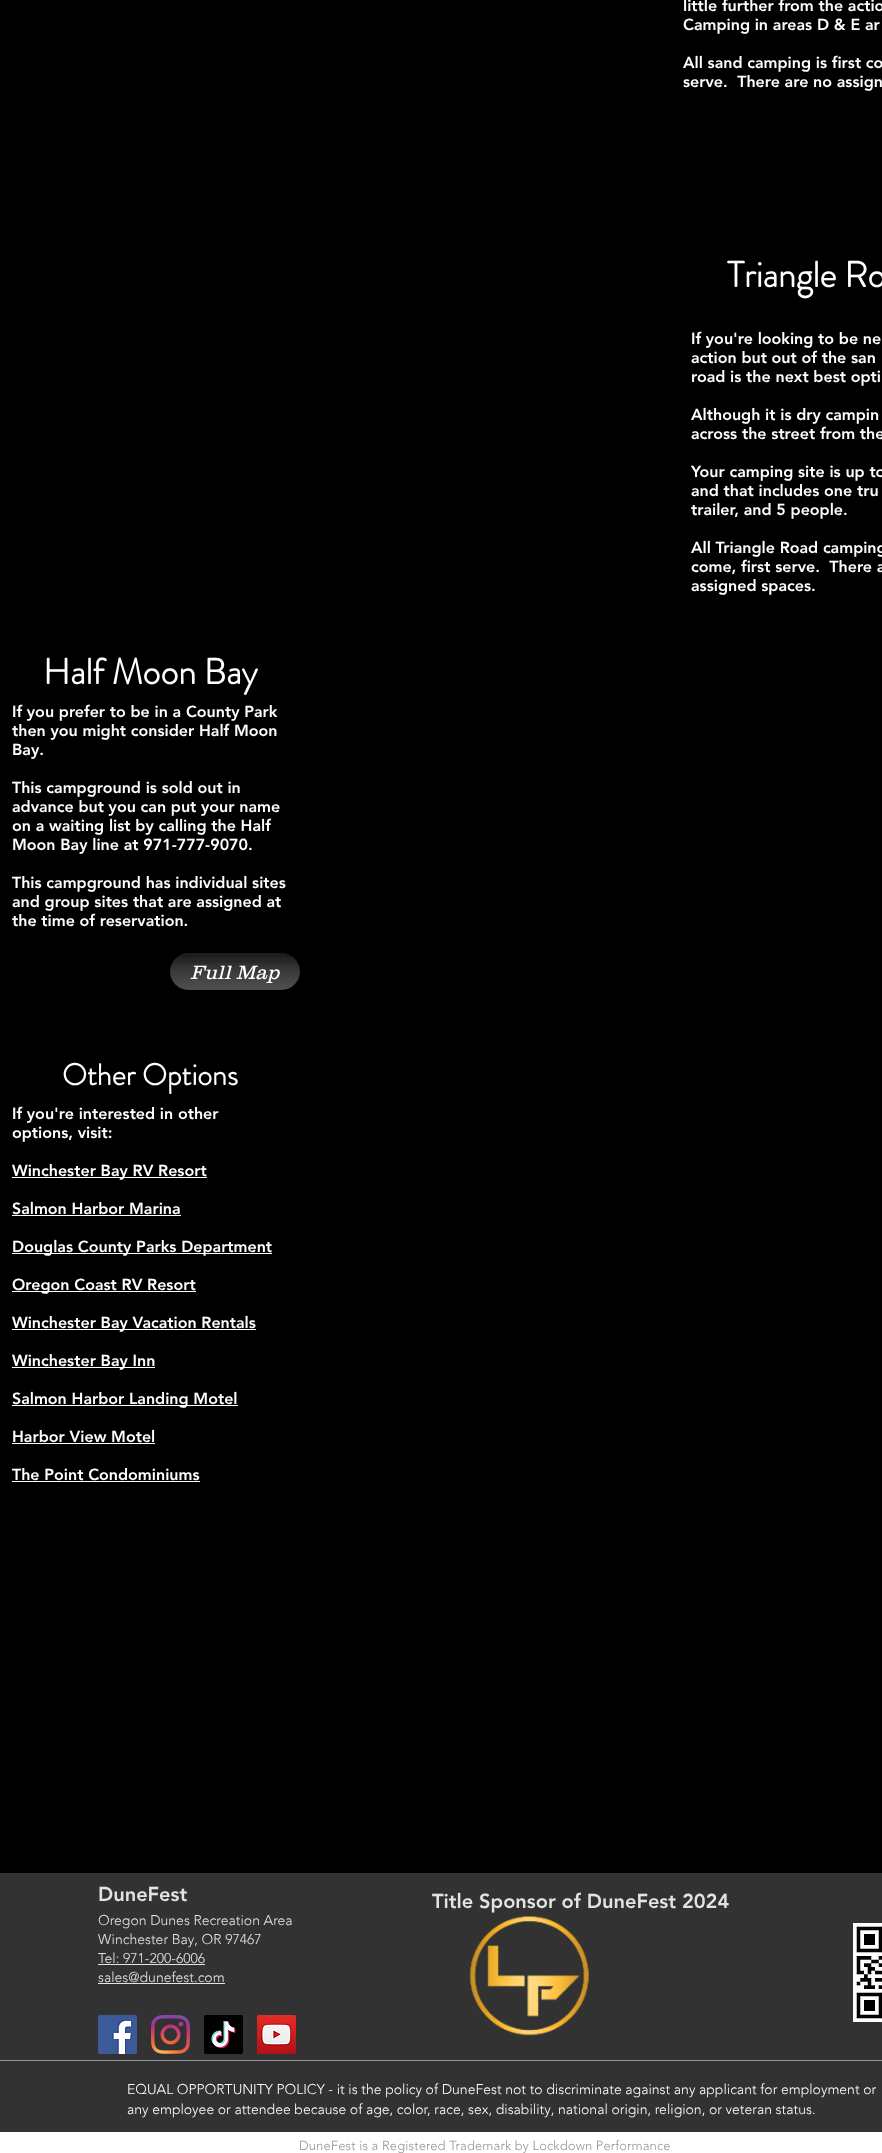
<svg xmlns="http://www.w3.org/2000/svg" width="882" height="2153">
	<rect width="100%" height="100%" fill="#FFFFFF" />
	<rect x="0" y="0" width="882" height="1873" fill="#000000" />
	<g font-family="'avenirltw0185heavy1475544'" font-size="16" font-weight="900" fill="#FFFFFF">
		<text x="683" y="11">little further from the actio</text>
		<text x="683" y="30">Camping in areas D &amp; E ar</text>
		<text x="683" y="68">All sand camping is first co</text>
		<text x="683" y="87" xml:space="preserve">serve.  There are no assign</text>
	</g>
	<text x="727" y="287" font-family="'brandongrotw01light'" font-size="36" font-weight="700" fill="#FFFFFF">Triangle Ro</text>
	<g font-family="'avenirltw0185heavy1475544'" font-size="16" font-weight="900" fill="#FFFFFF">
		<text x="691" y="344">If you're looking to be ne</text>
		<text x="691" y="363">action but out of the san</text>
		<text x="691" y="382">road is the next best opti</text>
		<text x="691" y="420">Although it is dry campin</text>
		<text x="691" y="439">across the street from the</text>
		<text x="691" y="477">Your camping site is up to</text>
		<text x="691" y="496">and that includes one tru</text>
		<text x="691" y="515">trailer, and 5 people.</text>
		<text x="691" y="553">All Triangle Road camping</text>
		<text x="691" y="572" xml:space="preserve">come, first serve.  There a</text>
		<text x="691" y="591">assigned spaces.</text>
	</g>
	<text x="43" y="684" font-family="'brandongrotw01light'" font-size="36" font-weight="700" fill="#FFFFFF">Half Moon Bay</text>
	<g font-family="'avenirltw0185heavy1475544'" font-size="16" font-weight="900" fill="#FFFFFF">
		<text x="12" y="717">If you prefer to be in a County Park</text>
		<text x="12" y="736">then you might consider Half Moon</text>
		<text x="12" y="755">Bay.</text>
		<text x="12" y="793">This campground is sold out in</text>
		<text x="12" y="812">advance but you can put your name</text>
		<text x="12" y="831">on a waiting list by calling the Half</text>
		<text x="12" y="850">Moon Bay line at 971-777-9070.</text>
		<text x="12" y="888">This campground has individual sites</text>
		<text x="12" y="907">and group sites that are assigned at</text>
		<text x="12" y="926">the time of reservation.</text>
	</g>
	<rect x="170" y="953" width="130" height="37" rx="18.5" fill="#232323" />
	<image x="173" y="953" width="124" height="10" href="assets/img1.png" />
	<image x="170" y="957" width="130" height="33" href="assets/img2.png" />
	<text x="190" y="979" font-family="'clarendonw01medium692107'" font-size="20" font-weight="300" font-style="italic" fill="#FFFFFF">Full Map</text>
	<text x="62" y="1085" font-family="'brandongrotw01light'" font-size="30" font-weight="700" fill="#FFFFFF">Other Options</text>
	<g font-family="'avenirltw0185heavy1475544'" font-size="16" font-weight="900" fill="#FFFFFF">
		<text x="12" y="1119">If you're interested in other</text>
		<text x="12" y="1138">options, visit:</text>
	</g>
	<rect x="12" y="1177" width="195" height="1" fill="#FFFFFF" />
	<g font-family="'avenirltw0185heavy1475544'" font-size="16" font-weight="900" fill="#FFFFFF">
		<text x="12" y="1176">Winchester Bay RV Resort</text>
		<text x="12" y="1214">Salmon Harbor Marina</text>
	</g>
	<rect x="12" y="1215" width="169" height="1" fill="#FFFFFF" />
	<rect x="12" y="1253" width="260" height="1" fill="#FFFFFF" />
	<text x="12" y="1252" font-family="'avenirltw0185heavy1475544'" font-size="16" font-weight="900" fill="#FFFFFF">Douglas County Parks Department</text>
	<rect x="12" y="1291" width="184" height="1" fill="#FFFFFF" />
	<text x="12" y="1290" font-family="'avenirltw0185heavy1475544'" font-size="16" font-weight="900" fill="#FFFFFF">Oregon Coast RV Resort</text>
	<rect x="12" y="1329" width="244" height="1" fill="#FFFFFF" />
	<text x="12" y="1328" font-family="'avenirltw0185heavy1475544'" font-size="16" font-weight="900" fill="#FFFFFF">Winchester Bay Vacation Rentals</text>
	<rect x="12" y="1367" width="143" height="1" fill="#FFFFFF" />
	<text x="12" y="1366" font-family="'avenirltw0185heavy1475544'" font-size="16" font-weight="900" fill="#FFFFFF">Winchester Bay Inn</text>
	<rect x="12" y="1405" width="226" height="1" fill="#FFFFFF" />
	<g font-family="'avenirltw0185heavy1475544'" font-size="16" font-weight="900" fill="#FFFFFF">
		<text x="12" y="1404">Salmon Harbor Landing Motel</text>
		<text x="12" y="1442">Harbor View Motel</text>
	</g>
	<rect x="12" y="1443" width="143" height="1" fill="#FFFFFF" />
	<text x="12" y="1480" font-family="'avenirltw0185heavy1475544'" font-size="16" font-weight="900" fill="#FFFFFF">The Point Condominiums</text>
	<rect x="12" y="1481" width="188" height="1" fill="#FFFFFF" />
	<rect x="0" y="1873" width="882" height="259" fill="#323232" />
	<g font-family="'avenirltw0185heavy1475544'" font-size="20" font-weight="900" fill="#E3E3E3">
		<text x="98" y="1901">DuneFest</text>
		<text x="432" y="1908">Title Sponsor of DuneFest 2024</text>
	</g>
	<text x="98" y="1925" font-family="'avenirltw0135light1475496'" font-size="14" font-weight="300" fill="#E3E3E3">Oregon Dunes Recreation Area</text>
	<image x="469" y="1915" width="120" height="121" href="assets/img3.png" />
	<image x="853" y="1923" width="29" height="99" href="assets/img4.png" />
	<g font-family="'avenirltw0135light1475496'" font-size="14" font-weight="300" fill="#E3E3E3">
		<text x="98" y="1944">Winchester Bay, OR 97467</text>
		<text x="98" y="1963">Tel: 971-200-6006</text>
	</g>
	<rect x="98" y="1964" width="107" height="1" fill="#E3E3E3" />
	<text x="98" y="1982" font-family="'avenirltw0135light1475496'" font-size="14" font-weight="300" fill="#E3E3E3">sales@dunefest.com</text>
	<rect x="98" y="1983" width="127" height="1" fill="#E3E3E3" />
	<image x="98" y="2015" width="39" height="39" href="assets/img5.png" />
	<image x="151" y="2015" width="39" height="39" href="assets/img6.png" />
	<image x="204" y="2015" width="39" height="39" href="assets/img7.png" />
	<image x="257" y="2015" width="39" height="39" href="assets/img8.png" />
	<rect x="0" y="2060" width="882" height="1" fill="#959595" />
	<g font-family="'avenirltw0135light1475496'" font-size="14" font-weight="300" fill="#FFFFFF">
		<text x="127" y="2094">EQUAL OPPORTUNITY POLICY - it is the policy of DuneFest not to discriminate against any applicant for employment or</text>
		<text x="127" y="2114">any employee or attendee because of age, color, race, sex, disability, national origin, religion, or veteran status.</text>
	</g>
	<text x="299" y="2150" font-family="'avenirltw0135light1475496'" font-size="13" font-weight="300" letter-spacing="0.13" fill="#959595">DuneFest is a Registered Trademark by Lockdown Performance</text>
</svg>
